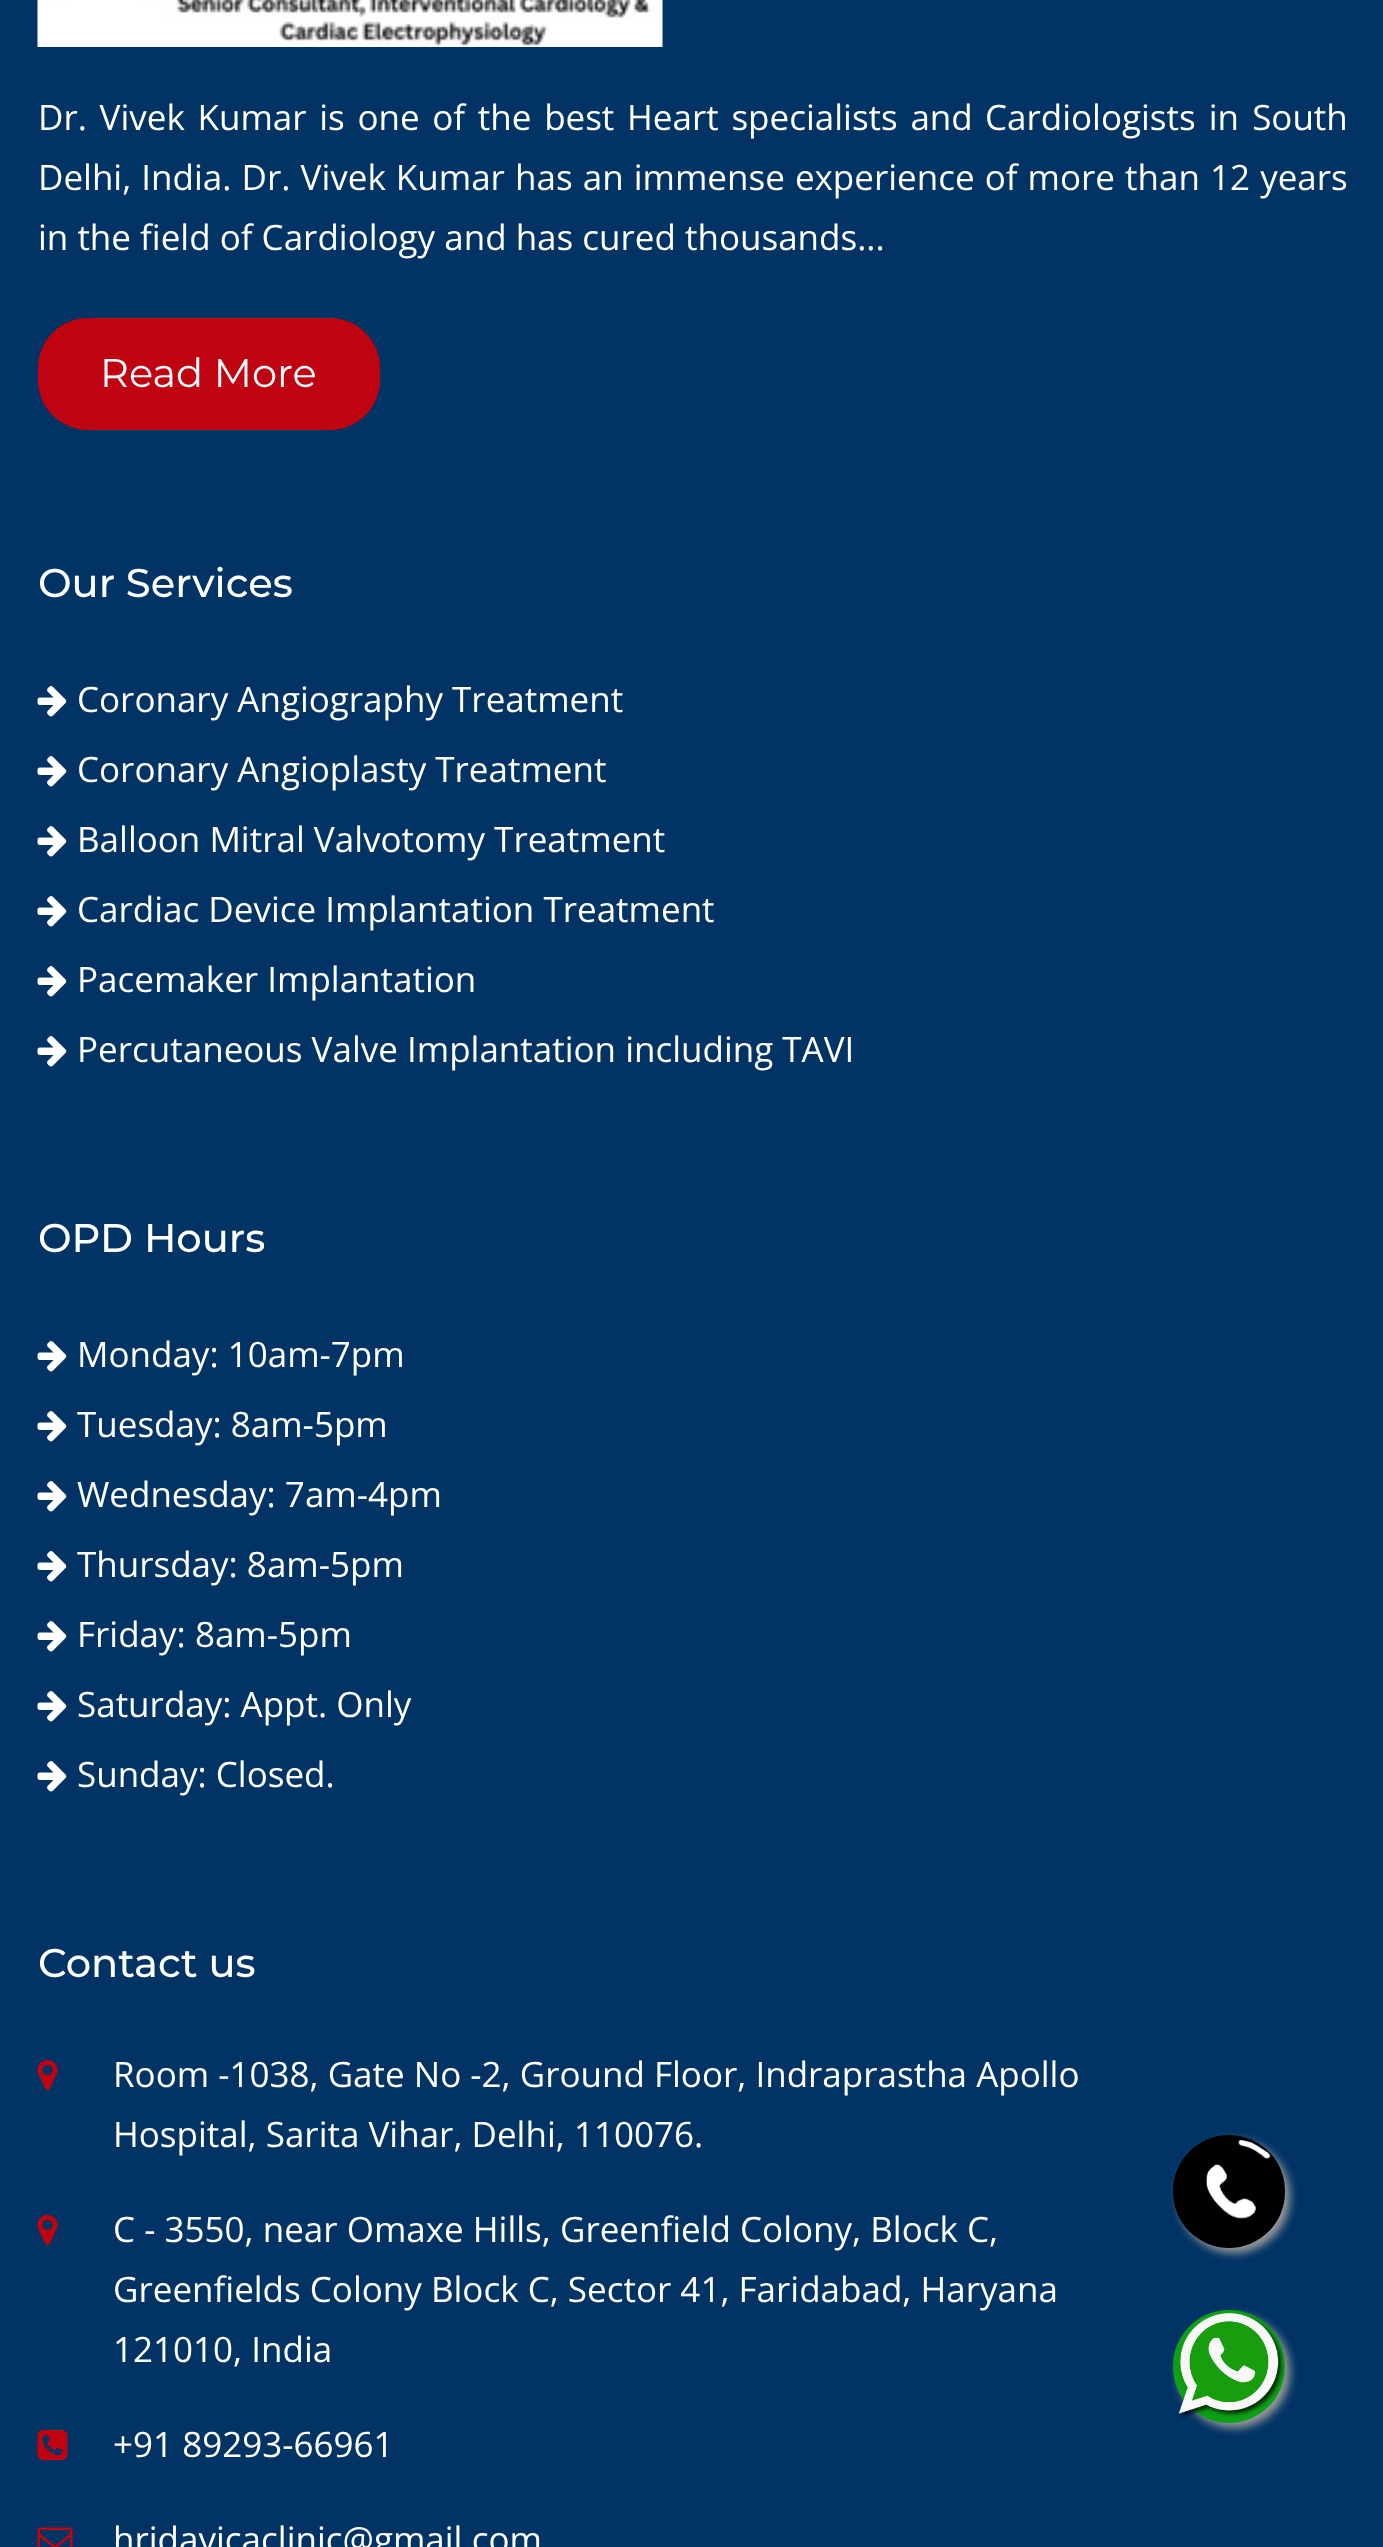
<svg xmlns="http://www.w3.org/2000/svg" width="1383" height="2547">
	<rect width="100%" height="100%" fill="#013465" />
	<image x="37" y="0" width="626" height="47" href="assets/img1.png" />
	<g font-family="Open Sans" font-size="35" fill="#FFFFFF">
		<text x="38" y="130" word-spacing="3.6">Dr. Vivek Kumar is one of the best Heart specialists and</text>
		<text x="985" y="130" word-spacing="4">Cardiologists in South</text>
		<text x="38" y="190" word-spacing="1">Delhi, India. Dr. Vivek Kumar has an immense experience of more than 12 years</text>
		<text x="38" y="250">in the field of Cardiology and has cured thousands...</text>
	</g>
	<rect x="38" y="318" width="342" height="112" rx="50" fill="#BF0311" />
	<text x="100" y="387" font-family="Montserrat" font-size="40" fill="#FFFFFF">Read More</text>
	<text x="38" y="597" font-family="Montserrat" font-size="40" font-weight="500" fill="#FFFFFF">Our Services</text>
	<image x="37" y="686" width="30" height="31" href="assets/img2.png" />
	<text x="77" y="712" font-family="Open Sans" font-size="35" fill="#FFFFFF">Coronary Angiography Treatment</text>
	<image x="37" y="756" width="30" height="31" href="assets/img2.png" />
	<text x="77" y="782" font-family="Open Sans" font-size="35" fill="#FFFFFF">Coronary Angioplasty Treatment</text>
	<image x="37" y="826" width="30" height="31" href="assets/img2.png" />
	<text x="77" y="852" font-family="Open Sans" font-size="35" fill="#FFFFFF">Balloon Mitral Valvotomy Treatment</text>
	<image x="37" y="896" width="30" height="31" href="assets/img2.png" />
	<text x="77" y="922" font-family="Open Sans" font-size="35" fill="#FFFFFF">Cardiac Device Implantation Treatment</text>
	<image x="37" y="966" width="30" height="31" href="assets/img2.png" />
	<text x="77" y="992" font-family="Open Sans" font-size="35" fill="#FFFFFF">Pacemaker Implantation</text>
	<image x="37" y="1036" width="30" height="31" href="assets/img2.png" />
	<text x="77" y="1062" font-family="Open Sans" font-size="35" fill="#FFFFFF">Percutaneous Valve Implantation including TAVI</text>
	<text x="38" y="1252" font-family="Montserrat" font-size="40" font-weight="500" fill="#FFFFFF">OPD Hours</text>
	<image x="37" y="1341" width="30" height="31" href="assets/img2.png" />
	<text x="77" y="1367" font-family="Open Sans" font-size="35" fill="#FFFFFF">Monday: 10am-7pm</text>
	<image x="37" y="1411" width="30" height="31" href="assets/img2.png" />
	<text x="77" y="1437" font-family="Open Sans" font-size="35" fill="#FFFFFF">Tuesday: 8am-5pm</text>
	<image x="37" y="1481" width="30" height="31" href="assets/img2.png" />
	<text x="77" y="1507" font-family="Open Sans" font-size="35" fill="#FFFFFF">Wednesday: 7am-4pm</text>
	<image x="37" y="1551" width="30" height="31" href="assets/img2.png" />
	<text x="77" y="1577" font-family="Open Sans" font-size="35" fill="#FFFFFF">Thursday: 8am-5pm</text>
	<image x="37" y="1621" width="30" height="31" href="assets/img2.png" />
	<text x="77" y="1647" font-family="Open Sans" font-size="35" fill="#FFFFFF">Friday: 8am-5pm</text>
	<image x="37" y="1691" width="30" height="31" href="assets/img2.png" />
	<text x="77" y="1717" font-family="Open Sans" font-size="35" fill="#FFFFFF">Saturday: Appt. Only</text>
	<image x="37" y="1761" width="30" height="31" href="assets/img2.png" />
	<text x="77" y="1787" font-family="Open Sans" font-size="35" fill="#FFFFFF">Sunday: Closed.</text>
	<text x="38" y="1977" font-family="Montserrat" font-size="40" font-weight="500" fill="#FFFFFF">Contact us</text>
	<image x="37" y="2060" width="21" height="30" href="assets/img3.png" />
	<g font-family="Open Sans" font-size="35" fill="#FFFFFF">
		<text x="113" y="2087">Room -1038, Gate No -2, Ground Floor, Indraprastha Apollo</text>
		<text x="113" y="2147">Hospital, Sarita Vihar, Delhi, 110076.</text>
	</g>
	<image x="37" y="2215" width="21" height="30" href="assets/img3.png" />
	<g font-family="Open Sans" font-size="35" fill="#FFFFFF">
		<text x="113" y="2242">C - 3550, near Omaxe Hills, Greenfield Colony, Block C,</text>
		<text x="113" y="2302">Greenfields Colony Block C, Sector 41, Faridabad, Haryana</text>
		<text x="113" y="2362">121010, India</text>
	</g>
	<image x="37" y="2430" width="31" height="30" href="assets/img4.png" />
	<text x="113" y="2457" font-family="Open Sans" font-size="35" fill="#FFFFFF">+91 89293-66961</text>
	<image x="37" y="2527" width="36" height="20" href="assets/img5.png" />
	<text x="113" y="2552" font-family="Open Sans" font-size="35" fill="#FFFFFF">hridayicaclinic@gmail.com</text>
	<rect x="1178" y="2140" width="112" height="113" rx="56" fill="#999999" filter="blur(4px)" />
	<rect x="1173" y="2135" width="112" height="113" rx="56" fill="#000000" />
	<image x="1205" y="2140" width="66" height="79" href="assets/img6.png" />
	<rect x="1178" y="2315" width="112" height="113" rx="56" fill="#999999" filter="blur(4px)" />
	<rect x="1173" y="2310" width="112" height="113" rx="56" fill="#0D9F16" />
	<image x="1178" y="2312" width="106" height="107" href="assets/img7.png" />
</svg>
